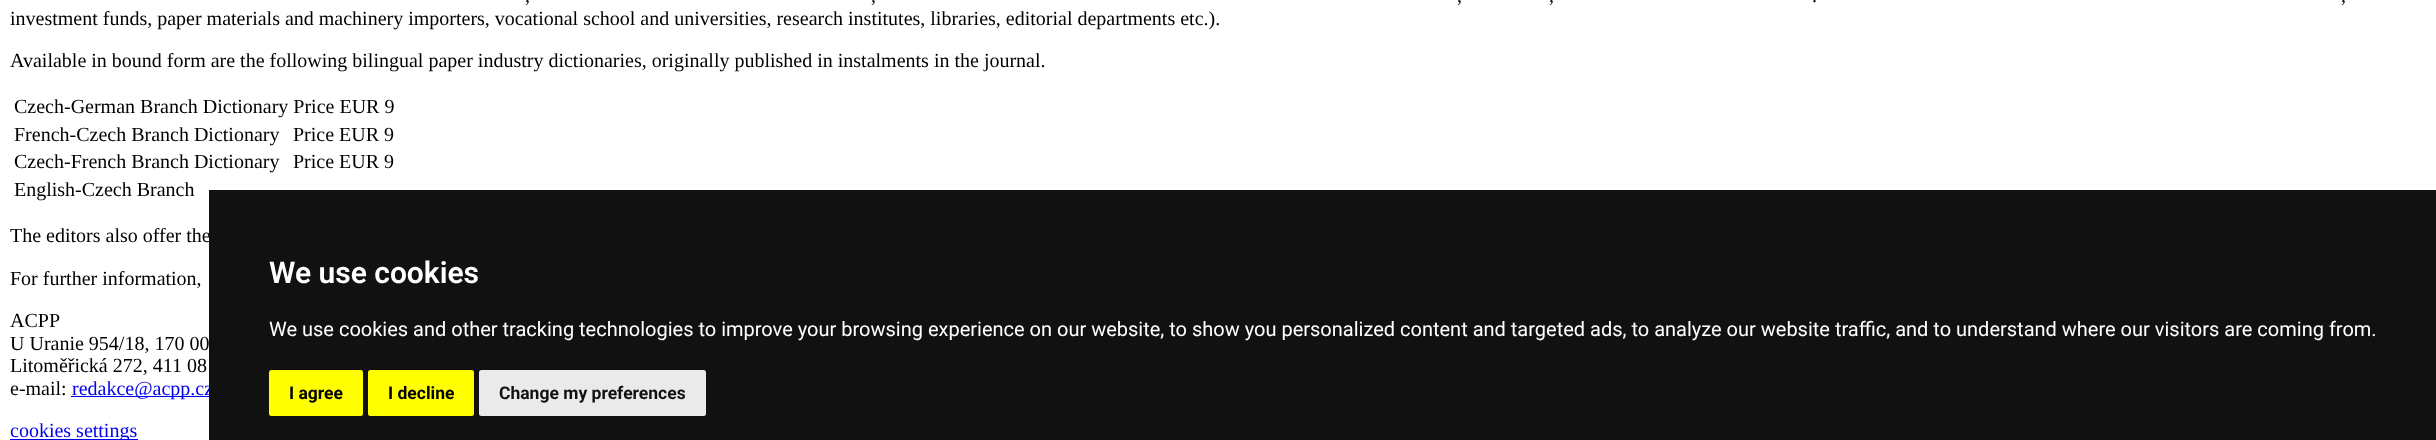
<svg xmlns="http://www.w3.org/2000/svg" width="2436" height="440">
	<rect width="100%" height="100%" fill="#FFFFFF" />
	<g font-family="Liberation Serif" font-size="20" fill="#000000">
		<text x="525" y="2">,</text>
		<text x="871" y="2">,</text>
		<text x="1457" y="2">,</text>
		<text x="1549" y="2">,</text>
		<text x="1812" y="2">.</text>
		<text x="2341" y="2">,</text>
		<text x="10" y="25">investment funds, paper materials and machinery importers, vocational school and universities, research institutes, libraries, editorial departments etc.).</text>
		<text x="10" y="67">Available in bound form are the following bilingual paper industry dictionaries, originally published in instalments in the journal.</text>
		<text x="14" y="113">Czech-German Branch Dictionary Price EUR 9</text>
		<text x="14" y="141">French-Czech Branch Dictionary</text>
		<text x="293" y="141">Price EUR 9</text>
		<text x="14" y="168">Czech-French Branch Dictionary</text>
		<text x="293" y="168">Price EUR 9</text>
		<text x="14" y="196">English-Czech Branch</text>
		<text x="10" y="242">The editors also offer the</text>
		<text x="10" y="285">For further information,</text>
		<text x="10" y="327">ACPP</text>
		<text x="10" y="350">U Uranie 954/18, 170 00</text>
		<text x="10" y="372">Litoměřická 272, 411 08</text>
		<text x="10" y="395">e-mail:</text>
	</g>
	<rect x="71" y="396" width="142" height="1" fill="#0000EE" />
	<text x="72" y="395" font-family="Liberation Serif" font-size="20" fill="#0000EE">redakce@acpp.cz</text>
	<rect x="10" y="439" width="128" height="1" fill="#0000EE" />
	<text x="10" y="437" font-family="Liberation Serif" font-size="20" fill="#0000EE">cookies settings</text>
	<rect x="209" y="190" width="2227" height="250" fill="#111111" />
	<text x="269" y="283" font-family="Roboto" font-size="30" font-weight="600" fill="#FFFFFF">We use cookies</text>
	<text x="269" y="336" font-family="Roboto" font-size="20" fill="#FFFFFF">We use cookies and other tracking technologies to improve your browsing experience on our website, to show you personalized content and targeted ads, to analyze our website traffic, and to understand where our visitors are coming from.</text>
	<rect x="269" y="370" width="94" height="46" rx="2.5" fill="#FFFF00" />
	<text x="289" y="399" font-family="Roboto" font-size="17.5" font-weight="700" fill="#000000">I agree</text>
	<rect x="368" y="370" width="106" height="46" rx="2.5" fill="#FFFF00" />
	<text x="388" y="399" font-family="Roboto" font-size="17.5" font-weight="700" fill="#000000">I decline</text>
	<rect x="479" y="370" width="227" height="46" rx="2.5" fill="#EAEAEA" />
	<text x="499" y="399" font-family="Roboto" font-size="17.5" font-weight="700" fill="#111111">Change my preferences</text>
</svg>
